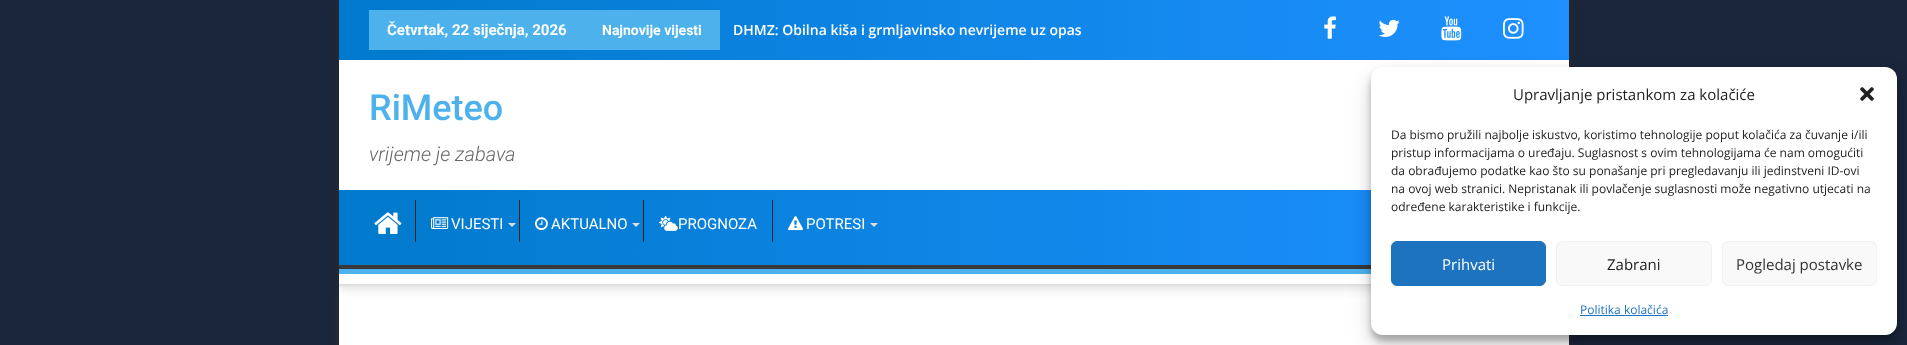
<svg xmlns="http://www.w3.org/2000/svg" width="1907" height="345">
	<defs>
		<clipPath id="clip1"><path d="M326 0H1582V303H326ZM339 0H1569V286H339Z" clip-rule="evenodd" /></clipPath>
		<linearGradient id="g1" gradientUnits="userSpaceOnUse" x1="339" y1="30" x2="1569" y2="30"><stop offset="0" stop-color="#007ACC" /><stop offset="1" stop-color="#1E90FF" /></linearGradient>
		<linearGradient id="g2" gradientUnits="userSpaceOnUse" x1="339" y1="230" x2="1569" y2="229"><stop offset="0" stop-color="#007ACC" /><stop offset="1" stop-color="#1E90FF" /></linearGradient>
		<clipPath id="clip2"><rect x="339" y="190" width="1230" height="79" /></clipPath>
	</defs>
	<rect width="100%" height="100%" fill="#1B263B" />
	<rect x="339" y="0" width="1230" height="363" fill="#2D2D2D" filter="blur(6px)" />
	<rect x="339" y="60" width="1230" height="285" fill="#FFFFFF" />
	<g clip-path="url(#clip1)">
		<rect x="339" y="4" width="1230" height="286" fill="#000000" fill-opacity="0.1" filter="blur(4px)" />
	</g>
	<rect x="339" y="284" width="1032" height="2" fill="#E0E0E0" />
	<rect x="339" y="0" width="1230" height="60" fill="url(#g1)" />
	<rect x="369" y="10" width="351" height="40" fill="#4DB2EC" />
	<text x="387" y="35" font-family="Roboto" font-size="15" font-weight="700" fill="#FFFFFF">Četvrtak, 22 siječnja, 2026</text>
	<text x="602" y="35" font-family="Roboto" font-size="14" font-weight="700" fill="#FFFFFF">Najnovije vijesti</text>
	<text x="733" y="35" font-family="Open Sans" font-size="14" font-weight="600" fill="#FFFFFF">DHMZ: Obilna kiša i grmljavinsko nevrijeme uz opas</text>
	<image x="1324" y="16" width="12" height="23" href="assets/img1.png" />
	<image x="1378" y="19" width="22" height="18" href="assets/img2.png" />
	<image x="1441" y="16" width="21" height="25" href="assets/img3.png" />
	<image x="1503" y="18" width="21" height="21" href="assets/img4.png" />
	<text x="369" y="120" font-family="Roboto" font-size="36" font-weight="500" fill="#4DB2EC">RiMeteo</text>
	<text x="369" y="161" font-family="Roboto" font-size="20" font-weight="300" font-style="italic" fill="#666666">vrijeme je zabava</text>
	<rect x="339" y="190" width="1032" height="75" fill="url(#g2)" />
	<g clip-path="url(#clip2)">
		<path d="M240 91H1668V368H240ZM338 184H1569V211V265H338L337 264V185Z" fill="#393939" fill-rule="evenodd" />
	</g>
	<rect x="339" y="269" width="1032" height="5" fill="#4DB2EC" />
	<image x="374" y="212" width="28" height="22" href="assets/img5.png" />
	<rect x="415" y="200" width="1" height="42" fill="#222222" />
	<image x="431" y="217" width="18" height="12" href="assets/img6.png" />
	<text x="451" y="229" font-family="Roboto" font-size="15" fill="#FFFFFF">VIJESTI</text>
	<path d="M508 223H516L512 227Z" fill="#DDDDDD" />
	<rect x="519" y="200" width="1" height="42" fill="#222222" />
	<image x="535" y="217" width="13" height="14" href="assets/img7.png" />
	<text x="551" y="229" font-family="Roboto" font-size="15" fill="#FFFFFF">AKTUALNO</text>
	<path d="M632 223H640L636 227Z" fill="#DDDDDD" />
	<rect x="643" y="200" width="1" height="42" fill="#222222" />
	<image x="659" y="215" width="19" height="16" href="assets/img8.png" />
	<text x="678" y="229" font-family="Roboto" font-size="15" fill="#FFFFFF">PROGNOZA</text>
	<rect x="772" y="200" width="1" height="42" fill="#222222" />
	<image x="788" y="216" width="15" height="15" href="assets/img9.png" />
	<text x="806" y="229" font-family="Roboto" font-size="15" fill="#FFFFFF">POTRESI</text>
	<path d="M870 223H878L874 227Z" fill="#DDDDDD" />
	<rect x="1371" y="73" width="526" height="268" rx="12" fill="#000000" fill-opacity="0.23" filter="blur(3px)" />
	<rect x="1371" y="77" width="526" height="268" rx="12" fill="#000000" fill-opacity="0.19" filter="blur(10px)" />
	<rect x="1371" y="67" width="526" height="268" rx="12" fill="#FFFFFF" />
	<text x="1513" y="100" font-family="Open Sans" font-size="15" fill="#222222">Upravljanje pristankom za kolačiće</text>
	<image x="1860" y="87" width="14" height="14" href="assets/img10.png" />
	<g font-family="Open Sans" font-size="12" fill="#222222">
		<text x="1391" y="139">Da bismo pružili najbolje iskustvo, koristimo tehnologije poput kolačića za čuvanje i/ili</text>
		<text x="1391" y="157">pristup informacijama o uređaju. Suglasnost s ovim tehnologijama će nam omogućiti</text>
		<text x="1391" y="175">da obrađujemo podatke kao što su ponašanje pri pregledavanju ili jedinstveni ID-ovi</text>
		<text x="1391" y="193">na ovoj web stranici. Nepristanak ili povlačenje suglasnosti može negativno utjecati na</text>
		<text x="1391" y="211">određene karakteristike i funkcije.</text>
	</g>
	<rect x="1391.5" y="241.5" width="154" height="44" rx="5.5" fill="#1E73BE" stroke="#1E73BE" />
	<text x="1442" y="270" font-family="Open Sans" font-size="15" fill="#FFFFFF">Prihvati</text>
	<rect x="1556.5" y="241.5" width="155" height="44" rx="5.5" fill="#F9F9F9" stroke="#F2F2F2" />
	<text x="1607" y="270" font-family="Open Sans" font-size="15" fill="#222222">Zabrani</text>
	<rect x="1722.5" y="241.5" width="154" height="44" rx="5.5" fill="#F9F9F9" stroke="#F2F2F2" />
	<text x="1736" y="270" font-family="Open Sans" font-size="15" fill="#333333">Pogledaj postavke</text>
	<text x="1580" y="314" font-family="Open Sans" font-size="12" fill="#1E73BE">Politika kolačića</text>
	<rect x="1580" y="315" width="88" height="1" fill="#1E73BE" />
</svg>
